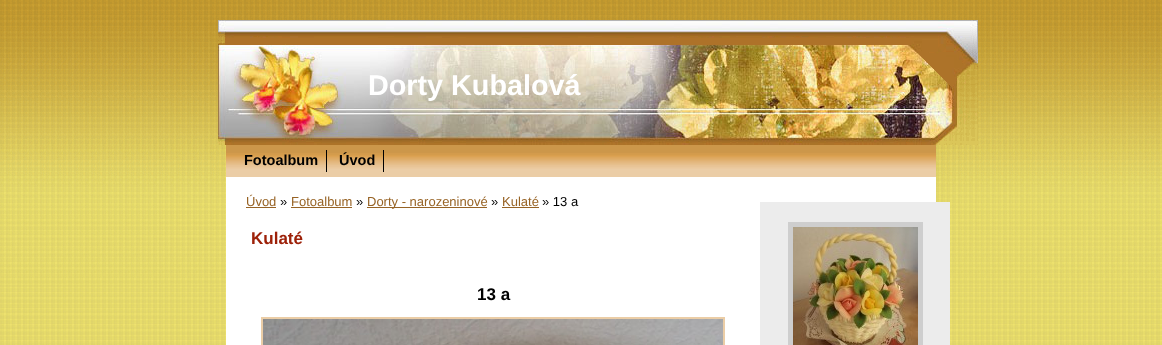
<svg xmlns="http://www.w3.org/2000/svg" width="1162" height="345">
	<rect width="100%" height="100%" fill="#FFFFFF" />
	<image x="0" y="285" width="1162" height="60" href="assets/img1.png" />
	<image x="0" y="0" width="1162" height="285" href="assets/img2.png" />
	<rect x="226" y="177" width="710" height="168" fill="#FFFFFF" />
	<image x="219" y="45" width="734" height="94" href="assets/img3.png" />
	<image x="218" y="20" width="760" height="125" href="assets/img4.png" />
	<text x="368" y="95" font-family="Liberation Sans" font-size="28.75" font-weight="700" fill="#FFFFFF">Dorty Kubalová</text>
	<image x="226" y="145" width="710" height="32" href="assets/img5.png" />
	<rect x="326" y="150" width="1" height="22" fill="#000000" />
	<text x="244" y="165" font-family="Liberation Sans" font-size="14.5" font-weight="700" fill="#000000">Fotoalbum</text>
	<rect x="383" y="150" width="1" height="22" fill="#000000" />
	<text x="339" y="165" font-family="Liberation Sans" font-size="14.5" font-weight="700" fill="#000000">Úvod</text>
	<text x="246" y="206" font-family="Liberation Sans" font-size="13" fill="#976325">Úvod</text>
	<rect x="246" y="207" width="30" height="1" fill="#976325" />
	<text x="280" y="206" font-family="Liberation Sans" font-size="13" fill="#000000">»</text>
	<text x="291" y="206" font-family="Liberation Sans" font-size="13" fill="#976325">Fotoalbum</text>
	<rect x="291" y="207" width="61" height="1" fill="#976325" />
	<text x="356" y="206" font-family="Liberation Sans" font-size="13" fill="#000000">»</text>
	<rect x="367" y="207" width="120" height="1" fill="#976325" />
	<text x="367" y="206" font-family="Liberation Sans" font-size="13" fill="#976325">Dorty - narozeninové</text>
	<text x="491" y="206" font-family="Liberation Sans" font-size="13" fill="#000000">»</text>
	<text x="502" y="206" font-family="Liberation Sans" font-size="13" fill="#976325">Kulaté</text>
	<rect x="502" y="207" width="37" height="1" fill="#976325" />
	<text x="542" y="206" font-family="Liberation Sans" font-size="13" fill="#000000">» 13 a</text>
	<text x="251" y="244" font-family="Liberation Sans" font-size="17" font-weight="700" fill="#9D2109">Kulaté</text>
	<text x="477" y="300" font-family="Liberation Sans" font-size="17" font-weight="700" fill="#000000">13 a</text>
	<rect x="262" y="318" width="462" height="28" fill="none" stroke="#EBCDA6" stroke-width="2" />
	<image x="263" y="319" width="460" height="26" href="assets/img6.png" />
	<rect x="760" y="202" width="190" height="143" fill="#ECECEC" />
	<rect x="790.5" y="224.5" width="130" height="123" fill="none" stroke="#CECECE" stroke-width="5" />
	<image x="793" y="227" width="125" height="118" href="assets/img7.png" />
</svg>
